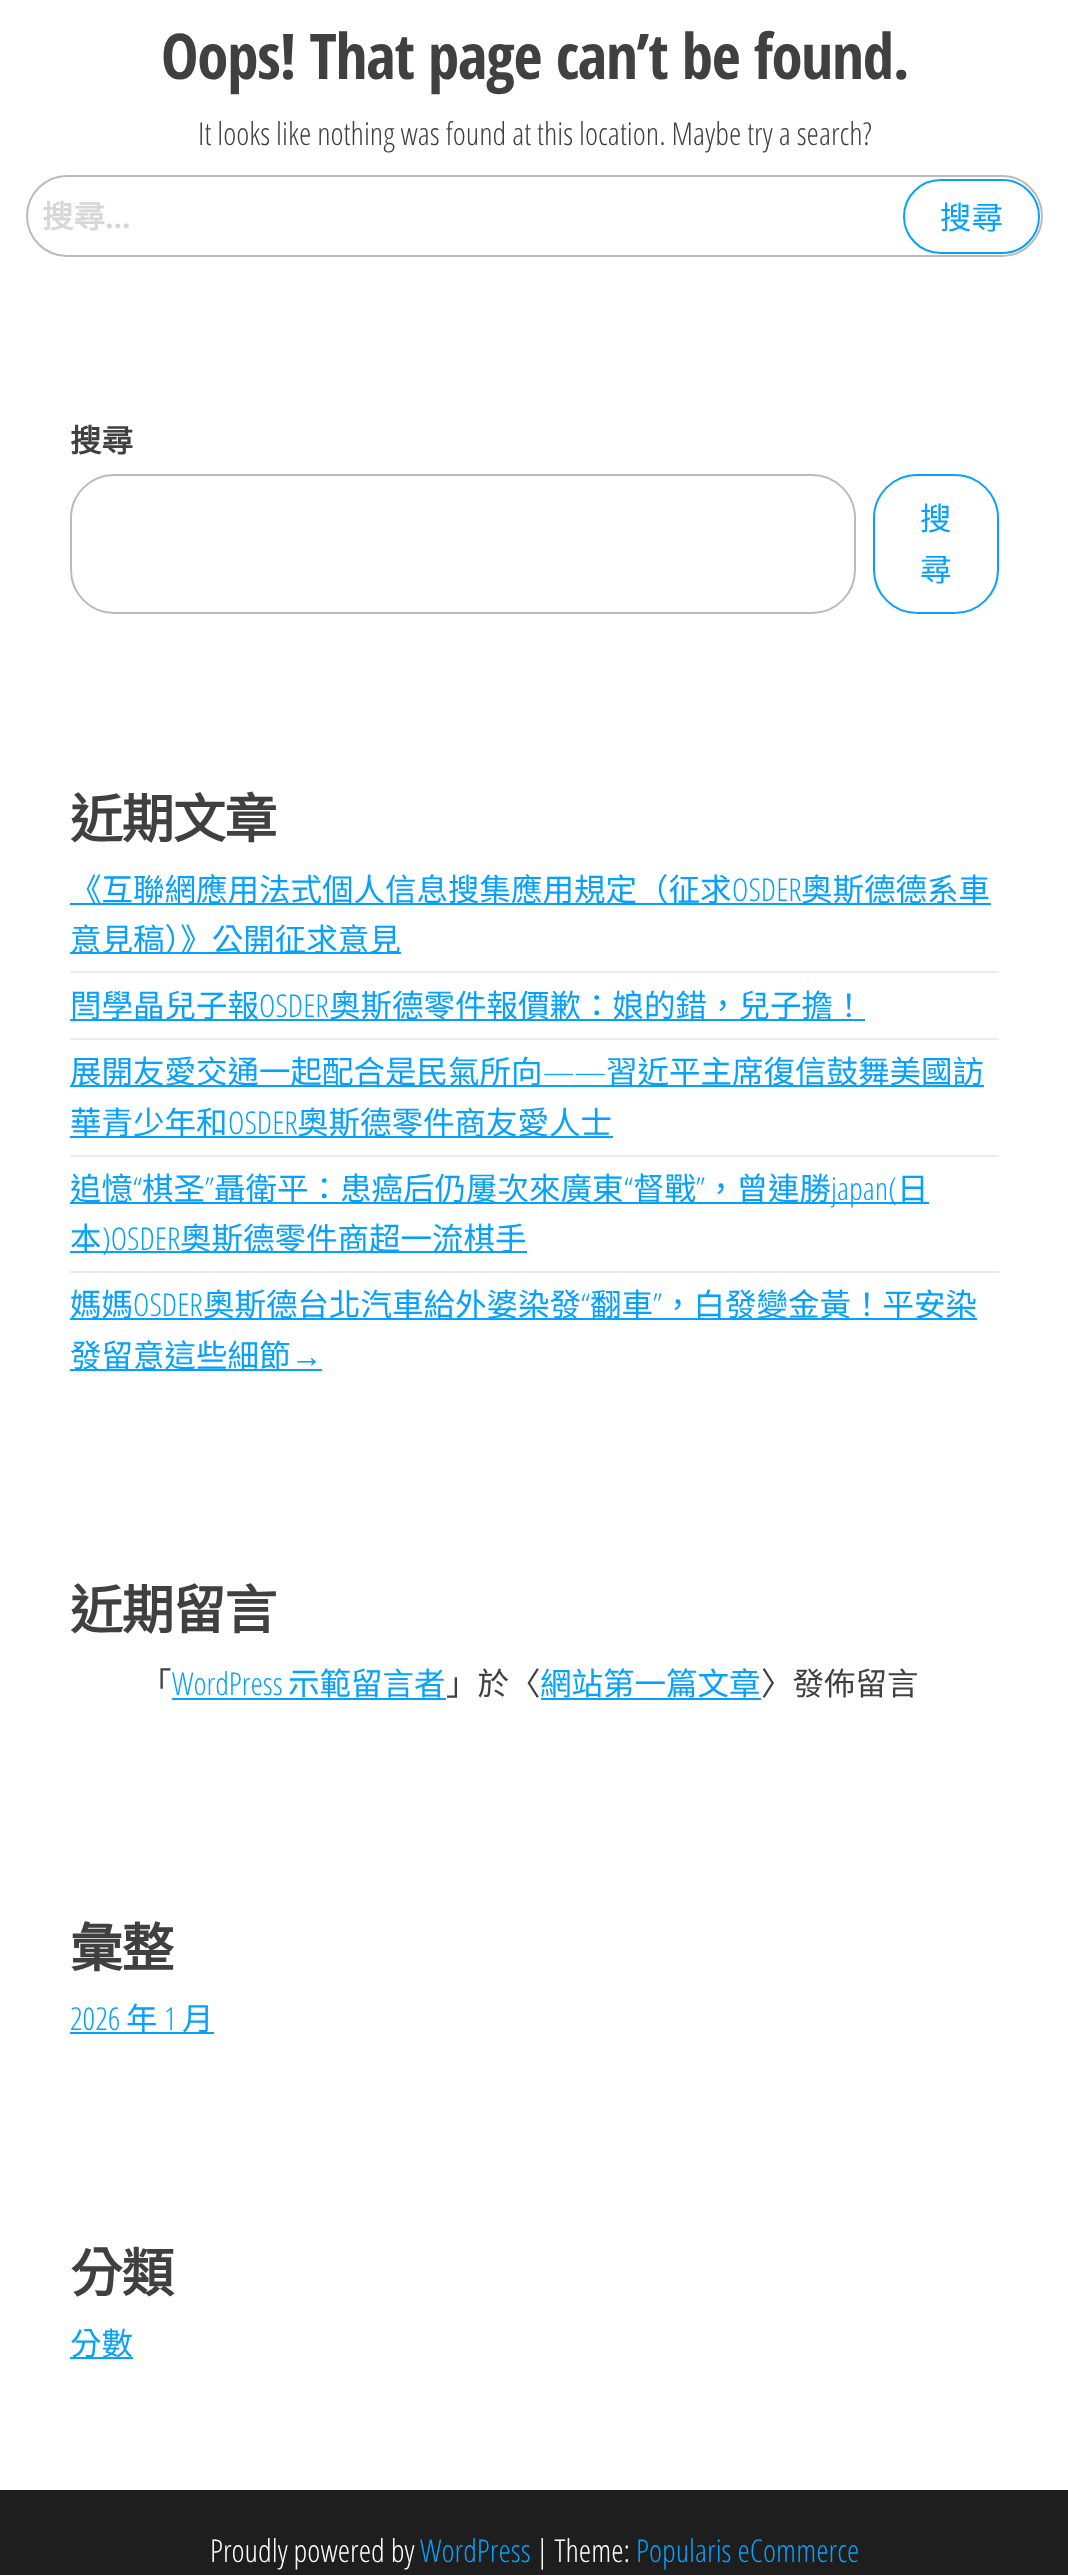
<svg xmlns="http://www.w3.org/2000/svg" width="1068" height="2575">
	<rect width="100%" height="100%" fill="#FFFFFF" />
	<text x="161" y="79" font-family="Open Sans Condensed" font-size="63" font-weight="700" letter-spacing="-1.25" fill="#404040">Oops! That page can’t be found.</text>
	<text x="198" y="145" font-family="Open Sans Condensed" font-size="31.5" font-weight="300" fill="#404040">It looks like nothing was found at this location. Maybe try a search?</text>
	<rect x="27" y="176" width="1015" height="80" rx="40" fill="none" stroke="#BBBBBB" stroke-width="2" />
	<text x="42" y="228" font-family="Noto Sans CJK TC" font-size="31.5" font-weight="700" fill="#D7D7D7">搜尋</text>
	<text x="105" y="228" font-family="Open Sans Condensed" font-size="31.5" font-weight="700" fill="#D7D7D7">...</text>
	<rect x="904" y="180" width="135" height="73" rx="36.5" fill="none" stroke="#07A1FD" stroke-width="2" />
	<text x="940" y="229" font-family="Noto Sans CJK TC" font-size="31.5" fill="#07A1FD">搜尋</text>
	<text x="70" y="452" font-family="Noto Sans CJK TC" font-size="31.5" font-weight="700" fill="#404040">搜尋</text>
	<rect x="71" y="475" width="784" height="138" rx="43" fill="none" stroke="#BBBBBB" stroke-width="2" />
	<rect x="874" y="475" width="124" height="138" rx="43" fill="none" stroke="#07A1FD" stroke-width="2" />
	<g font-family="Noto Sans CJK TC" font-size="31.5" fill="#07A1FD">
		<text x="920" y="530">搜</text>
		<text x="920" y="581">尋</text>
	</g>
	<text x="70" y="838" font-family="Noto Sans CJK TC" font-size="52.5" font-weight="700" letter-spacing="-1" fill="#404040">近期文章</text>
	<rect x="70" y="971" width="929" height="2" fill="#EBEBEB" />
	<rect x="70" y="903" width="921" height="2" fill="#07A1FD" />
	<text x="70" y="901" font-family="Noto Sans CJK TC" font-size="31.5" fill="#07A1FD">《互聯網應用法式個人信息搜集應用規定（征求</text>
	<text x="732" y="901" font-family="Open Sans Condensed" font-size="31.5" font-weight="300" fill="#07A1FD">OSDER</text>
	<text x="801" y="901" font-family="Noto Sans CJK TC" font-size="31.5" fill="#07A1FD">奧斯德德系車</text>
	<rect x="70" y="952" width="331" height="2" fill="#07A1FD" />
	<text x="70" y="951" font-family="Noto Sans CJK TC" font-size="31.5" fill="#07A1FD">意見稿）》公開征求意見</text>
	<rect x="70" y="1038" width="929" height="2" fill="#EBEBEB" />
	<rect x="70" y="1019" width="795" height="2" fill="#07A1FD" />
	<text x="70" y="1017" font-family="Noto Sans CJK TC" font-size="31.5" fill="#07A1FD">閆學晶兒子報</text>
	<text x="259" y="1017" font-family="Open Sans Condensed" font-size="31.5" font-weight="300" fill="#07A1FD">OSDER</text>
	<text x="329" y="1017" font-family="Noto Sans CJK TC" font-size="31.5" fill="#07A1FD">奧斯德零件報價歉：娘的錯，兒子擔！</text>
	<rect x="70" y="1155" width="929" height="2" fill="#EBEBEB" />
	<rect x="70" y="1085" width="914" height="2" fill="#07A1FD" />
	<text x="70" y="1083" font-family="Noto Sans CJK TC" font-size="31.5" fill="#07A1FD">展開友愛交通一起配合是民氣所向</text>
	<text x="543" y="1083" font-family="Open Sans Condensed" font-size="31.5" font-weight="300" fill="#07A1FD">——</text>
	<text x="606" y="1083" font-family="Noto Sans CJK TC" font-size="31.5" fill="#07A1FD">習近平主席復信鼓舞美國訪</text>
	<rect x="70" y="1136" width="543" height="2" fill="#07A1FD" />
	<text x="70" y="1134" font-family="Noto Sans CJK TC" font-size="31.5" fill="#07A1FD">華青少年和</text>
	<text x="228" y="1134" font-family="Open Sans Condensed" font-size="31.5" font-weight="300" fill="#07A1FD">OSDER</text>
	<text x="297" y="1134" font-family="Noto Sans CJK TC" font-size="31.5" fill="#07A1FD">奧斯德零件商友愛人士</text>
	<rect x="70" y="1271" width="929" height="2" fill="#EBEBEB" />
	<rect x="70" y="1202" width="859" height="2" fill="#07A1FD" />
	<text x="70" y="1200" font-family="Noto Sans CJK TC" font-size="31.5" fill="#07A1FD">追憶</text>
	<text x="133" y="1200" font-family="Open Sans Condensed" font-size="31.5" font-weight="300" fill="#07A1FD">“</text>
	<text x="142" y="1200" font-family="Noto Sans CJK TC" font-size="31.5" fill="#07A1FD">棋圣</text>
	<text x="205" y="1200" font-family="Open Sans Condensed" font-size="31.5" font-weight="300" fill="#07A1FD">”</text>
	<text x="214" y="1200" font-family="Noto Sans CJK TC" font-size="31.5" fill="#07A1FD">聶衛平：患癌后仍屢次來廣東</text>
	<text x="624" y="1200" font-family="Open Sans Condensed" font-size="31.5" font-weight="300" fill="#07A1FD">“</text>
	<text x="633" y="1200" font-family="Noto Sans CJK TC" font-size="31.5" fill="#07A1FD">督戰</text>
	<text x="696" y="1200" font-family="Open Sans Condensed" font-size="31.5" font-weight="300" fill="#07A1FD">”</text>
	<text x="705" y="1200" font-family="Noto Sans CJK TC" font-size="31.5" fill="#07A1FD">，曾連勝</text>
	<text x="831" y="1200" font-family="Open Sans Condensed" font-size="31.5" font-weight="300" fill="#07A1FD">japan(</text>
	<text x="897" y="1200" font-family="Noto Sans CJK TC" font-size="31.5" fill="#07A1FD">日</text>
	<rect x="70" y="1251" width="457" height="2" fill="#07A1FD" />
	<text x="70" y="1250" font-family="Noto Sans CJK TC" font-size="31.5" fill="#07A1FD">本</text>
	<text x="102" y="1250" font-family="Open Sans Condensed" font-size="31.5" font-weight="300" fill="#07A1FD">)OSDER</text>
	<text x="180" y="1250" font-family="Noto Sans CJK TC" font-size="31.5" fill="#07A1FD">奧斯德零件商超一流棋手</text>
	<rect x="70" y="1318" width="907" height="2" fill="#07A1FD" />
	<text x="70" y="1316" font-family="Noto Sans CJK TC" font-size="31.5" fill="#07A1FD">媽媽</text>
	<text x="133" y="1316" font-family="Open Sans Condensed" font-size="31.5" font-weight="300" fill="#07A1FD">OSDER</text>
	<text x="203" y="1316" font-family="Noto Sans CJK TC" font-size="31.5" fill="#07A1FD">奧斯德台北汽車給外婆染發</text>
	<text x="581" y="1316" font-family="Open Sans Condensed" font-size="31.5" font-weight="300" fill="#07A1FD">“</text>
	<text x="590" y="1316" font-family="Noto Sans CJK TC" font-size="31.5" fill="#07A1FD">翻車</text>
	<text x="653" y="1316" font-family="Open Sans Condensed" font-size="31.5" font-weight="300" fill="#07A1FD">”</text>
	<text x="662" y="1316" font-family="Noto Sans CJK TC" font-size="31.5" fill="#07A1FD">，白發變金黃！平安染</text>
	<rect x="70" y="1369" width="252" height="2" fill="#07A1FD" />
	<text x="70" y="1367" font-family="Noto Sans CJK TC" font-size="31.5" fill="#07A1FD">發留意這些細節</text>
	<text x="291" y="1367" font-family="Liberation Sans" font-size="31.5" fill="#07A1FD">→</text>
	<text x="70" y="1629" font-family="Noto Sans CJK TC" font-size="52.5" font-weight="700" letter-spacing="-1" fill="#404040">近期留言</text>
	<text x="140" y="1695" font-family="Noto Sans CJK TC" font-size="31.5" fill="#404040">「</text>
	<text x="172" y="1695" font-family="Open Sans Condensed" font-size="31.5" font-weight="300" fill="#07A1FD">WordPress</text>
	<rect x="172" y="1698" width="274" height="2" fill="#07A1FD" />
	<text x="288" y="1695" font-family="Noto Sans CJK TC" font-size="31.5" fill="#07A1FD">示範留言者</text>
	<text x="446" y="1695" font-family="Noto Sans CJK TC" font-size="31.5" fill="#404040">」於〈</text>
	<text x="540" y="1695" font-family="Noto Sans CJK TC" font-size="31.5" fill="#07A1FD">網站第一篇文章</text>
	<rect x="541" y="1698" width="220" height="2" fill="#07A1FD" />
	<text x="761" y="1695" font-family="Noto Sans CJK TC" font-size="31.5" fill="#404040">〉發佈留言</text>
	<text x="70" y="1967" font-family="Noto Sans CJK TC" font-size="52.5" font-weight="700" letter-spacing="-1" fill="#404040">彙整</text>
	<text x="70" y="2030" font-family="Open Sans Condensed" font-size="31.5" font-weight="300" fill="#07A1FD">2026</text>
	<rect x="70" y="2032" width="144" height="2" fill="#07A1FD" />
	<text x="126" y="2030" font-family="Noto Sans CJK TC" font-size="31.5" fill="#07A1FD">年</text>
	<text x="164" y="2030" font-family="Open Sans Condensed" font-size="31.5" font-weight="300" fill="#07A1FD">1</text>
	<text x="182" y="2030" font-family="Noto Sans CJK TC" font-size="31.5" fill="#07A1FD">月</text>
	<text x="70" y="2292" font-family="Noto Sans CJK TC" font-size="52.5" font-weight="700" letter-spacing="-1" fill="#404040">分類</text>
	<rect x="70" y="2357" width="63" height="2" fill="#07A1FD" />
	<text x="70" y="2355" font-family="Noto Sans CJK TC" font-size="31.5" fill="#07A1FD">分數</text>
	<rect x="0" y="2490" width="1068" height="85" fill="#1E1E1E" />
	<text x="210" y="2562" font-family="Open Sans Condensed" font-size="31.5" font-weight="300" fill="#FFFFFF">Proudly powered by</text>
	<text x="420" y="2562" font-family="Open Sans Condensed" font-size="31.5" font-weight="300" fill="#07A1FD">WordPress</text>
	<text x="536" y="2562" font-family="Open Sans Condensed" font-size="31.5" font-weight="300" fill="#FFFFFF">| Theme:</text>
	<text x="636" y="2562" font-family="Open Sans Condensed" font-size="31.5" font-weight="300" fill="#07A1FD">Popularis eCommerce</text>
</svg>
